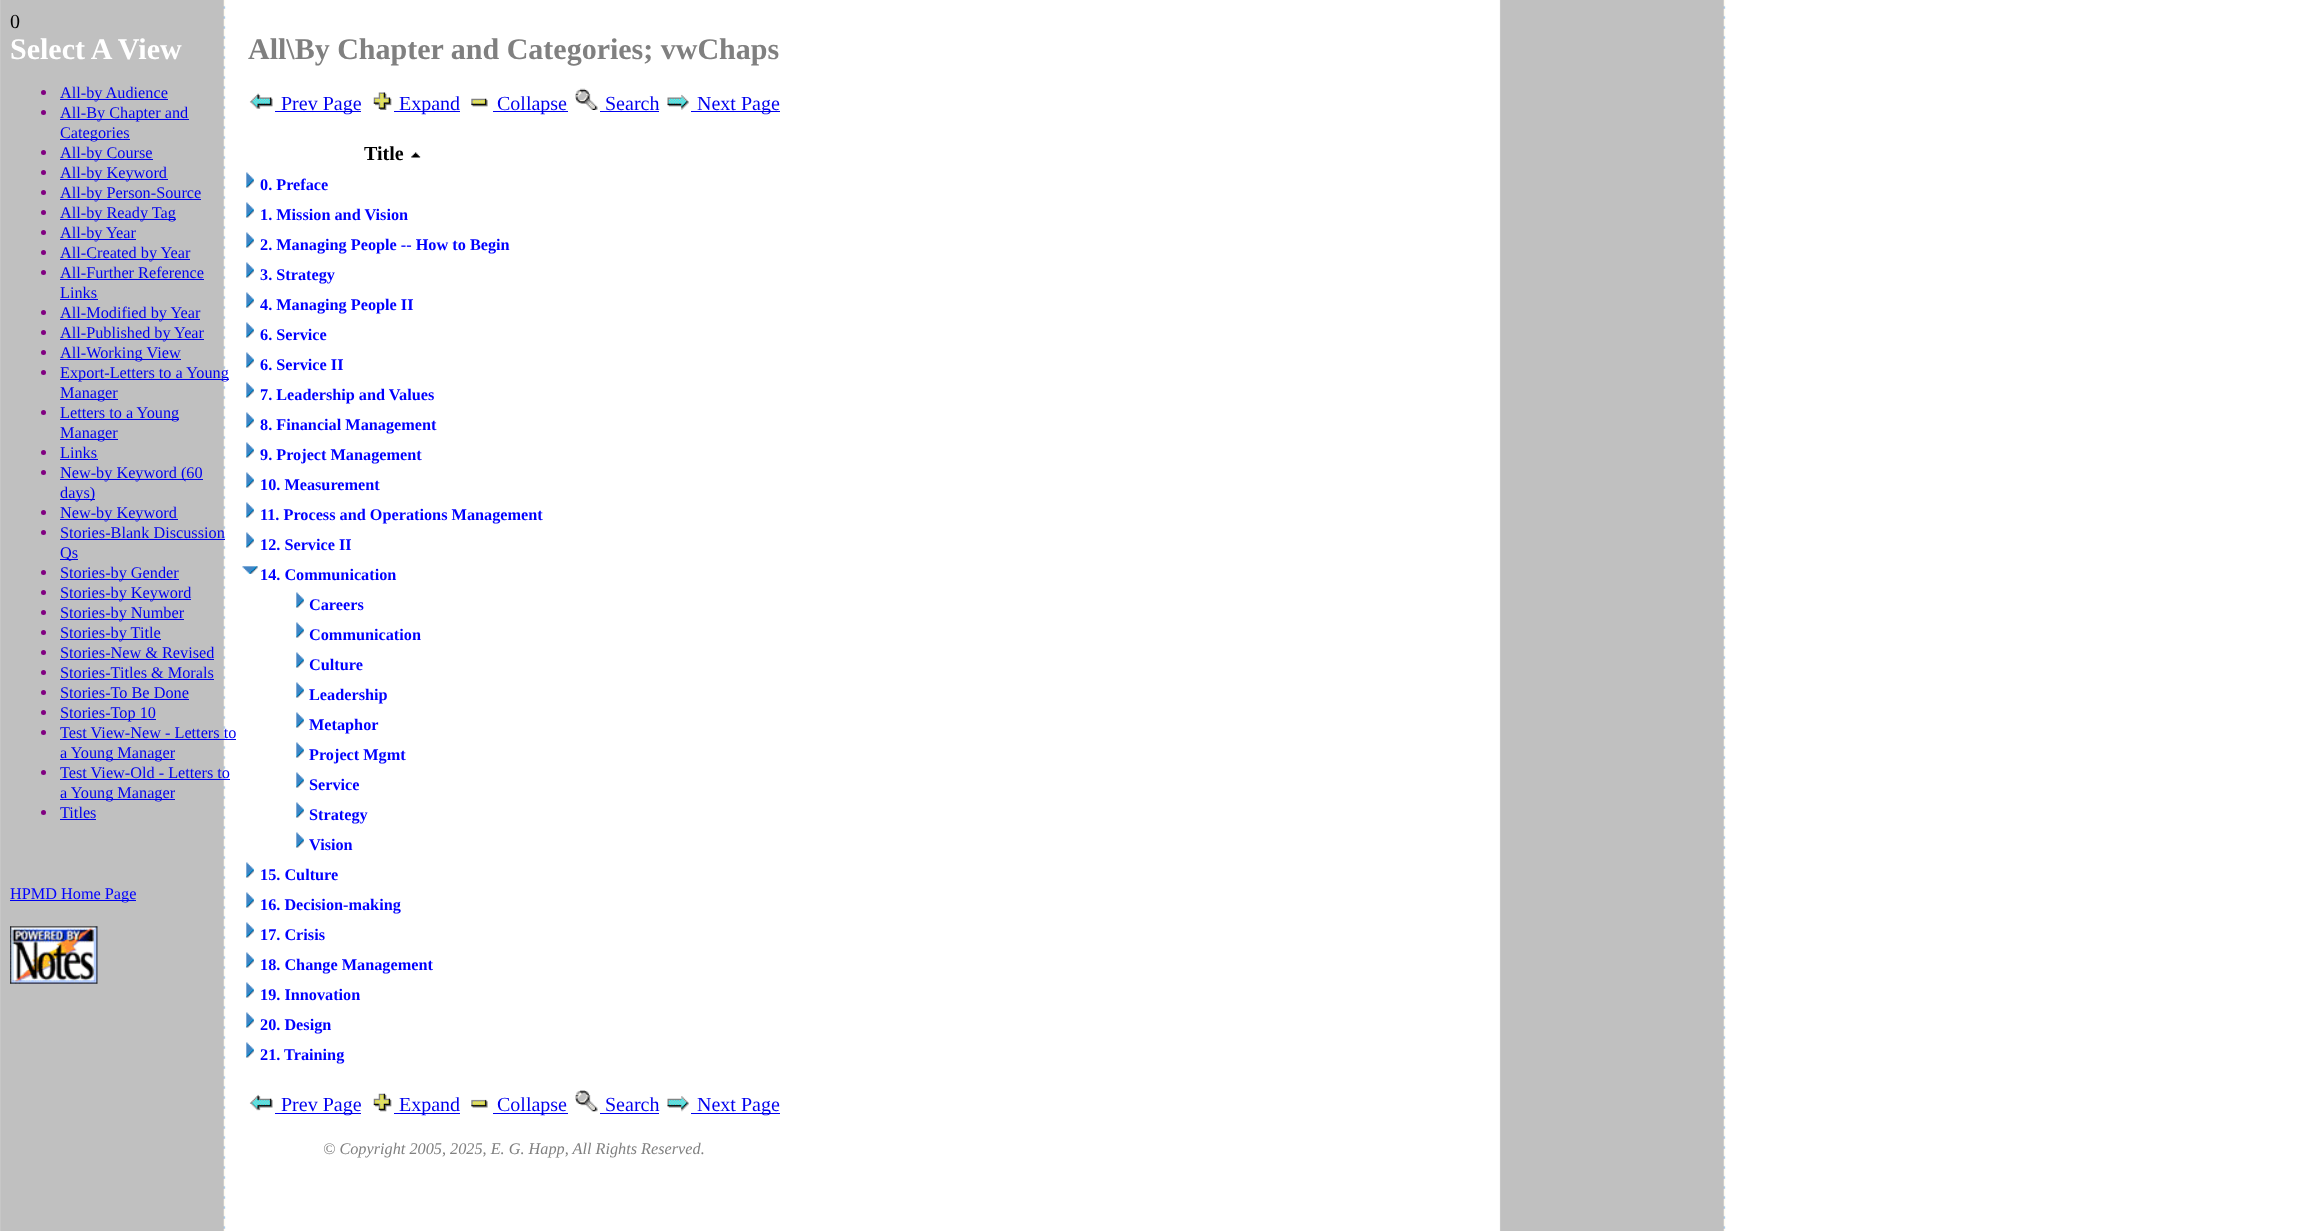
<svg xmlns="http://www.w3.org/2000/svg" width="2323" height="1231">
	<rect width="100%" height="100%" fill="#FFFFFF" />
	<image x="0" y="0" width="1726" height="1231" href="assets/img1.png" />
	<text x="10" y="28" font-family="Liberation Serif" font-size="20" fill="#000000">0</text>
	<text x="10" y="59" font-family="Liberation Serif" font-size="30" font-weight="700" fill="#FFFFFF">Select A View</text>
	<circle cx="43.5" cy="92.5" r="2.5" fill="#800080" />
	<rect x="60" y="99" width="108" height="1" fill="#0000EE" />
	<text x="60" y="98" font-family="Liberation Serif" font-size="16.25" fill="#0000EE">All-by Audience</text>
	<circle cx="43.5" cy="112.5" r="2.5" fill="#800080" />
	<rect x="60" y="119" width="129" height="1" fill="#0000EE" />
	<text x="60" y="118" font-family="Liberation Serif" font-size="16.25" fill="#0000EE">All-By Chapter and</text>
	<rect x="60" y="139" width="70" height="1" fill="#0000EE" />
	<text x="60" y="138" font-family="Liberation Serif" font-size="16.25" fill="#0000EE">Categories</text>
	<circle cx="43.5" cy="152.5" r="2.5" fill="#800080" />
	<rect x="60" y="159" width="93" height="1" fill="#0000EE" />
	<text x="60" y="158" font-family="Liberation Serif" font-size="16.25" fill="#0000EE">All-by Course</text>
	<circle cx="43.5" cy="172.5" r="2.5" fill="#800080" />
	<rect x="60" y="179" width="108" height="1" fill="#0000EE" />
	<text x="60" y="178" font-family="Liberation Serif" font-size="16.25" fill="#0000EE">All-by Keyword</text>
	<circle cx="43.5" cy="192.5" r="2.5" fill="#800080" />
	<rect x="60" y="199" width="141" height="1" fill="#0000EE" />
	<text x="60" y="198" font-family="Liberation Serif" font-size="16.25" fill="#0000EE">All-by Person-Source</text>
	<circle cx="43.5" cy="212.5" r="2.5" fill="#800080" />
	<rect x="60" y="219" width="116" height="1" fill="#0000EE" />
	<text x="60" y="218" font-family="Liberation Serif" font-size="16.25" fill="#0000EE">All-by Ready Tag</text>
	<circle cx="43.5" cy="232.5" r="2.5" fill="#800080" />
	<rect x="60" y="239" width="76" height="1" fill="#0000EE" />
	<text x="60" y="238" font-family="Liberation Serif" font-size="16.25" fill="#0000EE">All-by Year</text>
	<circle cx="43.5" cy="252.5" r="2.5" fill="#800080" />
	<rect x="60" y="259" width="130" height="1" fill="#0000EE" />
	<text x="60" y="258" font-family="Liberation Serif" font-size="16.25" fill="#0000EE">All-Created by Year</text>
	<circle cx="43.5" cy="272.5" r="2.5" fill="#800080" />
	<text x="60" y="278" font-family="Liberation Serif" font-size="16.25" fill="#0000EE">All-Further Reference</text>
	<rect x="60" y="279" width="144" height="1" fill="#0000EE" />
	<text x="60" y="298" font-family="Liberation Serif" font-size="16.25" fill="#0000EE">Links</text>
	<rect x="60" y="299" width="38" height="1" fill="#0000EE" />
	<circle cx="43.5" cy="312.5" r="2.5" fill="#800080" />
	<rect x="60" y="319" width="140" height="1" fill="#0000EE" />
	<text x="60" y="318" font-family="Liberation Serif" font-size="16.25" fill="#0000EE">All-Modified by Year</text>
	<circle cx="43.5" cy="332.5" r="2.5" fill="#800080" />
	<rect x="60" y="339" width="144" height="1" fill="#0000EE" />
	<text x="60" y="338" font-family="Liberation Serif" font-size="16.25" fill="#0000EE">All-Published by Year</text>
	<circle cx="43.5" cy="352.5" r="2.5" fill="#800080" />
	<rect x="60" y="359" width="121" height="1" fill="#0000EE" />
	<text x="60" y="358" font-family="Liberation Serif" font-size="16.25" fill="#0000EE">All-Working View</text>
	<circle cx="43.5" cy="372.5" r="2.5" fill="#800080" />
	<rect x="60" y="379" width="169" height="1" fill="#0000EE" />
	<text x="60" y="378" font-family="Liberation Serif" font-size="16.25" fill="#0000EE">Export-Letters to a Young</text>
	<rect x="60" y="399" width="58" height="1" fill="#0000EE" />
	<text x="60" y="398" font-family="Liberation Serif" font-size="16.25" fill="#0000EE">Manager</text>
	<circle cx="43.5" cy="412.5" r="2.5" fill="#800080" />
	<rect x="60" y="419" width="119" height="1" fill="#0000EE" />
	<text x="60" y="418" font-family="Liberation Serif" font-size="16.25" fill="#0000EE">Letters to a Young</text>
	<rect x="60" y="439" width="58" height="1" fill="#0000EE" />
	<text x="60" y="438" font-family="Liberation Serif" font-size="16.25" fill="#0000EE">Manager</text>
	<circle cx="43.5" cy="452.5" r="2.5" fill="#800080" />
	<text x="60" y="458" font-family="Liberation Serif" font-size="16.25" fill="#0000EE">Links</text>
	<rect x="60" y="459" width="38" height="1" fill="#0000EE" />
	<circle cx="43.5" cy="472.5" r="2.5" fill="#800080" />
	<rect x="60" y="479" width="143" height="1" fill="#0000EE" />
	<text x="60" y="478" font-family="Liberation Serif" font-size="16.25" fill="#0000EE">New-by Keyword (60</text>
	<rect x="60" y="499" width="35" height="1" fill="#0000EE" />
	<text x="60" y="498" font-family="Liberation Serif" font-size="16.25" fill="#0000EE">days)</text>
	<circle cx="43.5" cy="512.5" r="2.5" fill="#800080" />
	<rect x="60" y="519" width="118" height="1" fill="#0000EE" />
	<text x="60" y="518" font-family="Liberation Serif" font-size="16.25" fill="#0000EE">New-by Keyword</text>
	<circle cx="43.5" cy="532.5" r="2.5" fill="#800080" />
	<text x="60" y="538" font-family="Liberation Serif" font-size="16.25" fill="#0000EE">Stories-Blank Discussion</text>
	<rect x="60" y="539" width="165" height="1" fill="#0000EE" />
	<rect x="60" y="559" width="18" height="1" fill="#0000EE" />
	<text x="60" y="558" font-family="Liberation Serif" font-size="16.25" fill="#0000EE">Qs</text>
	<circle cx="43.5" cy="572.5" r="2.5" fill="#800080" />
	<rect x="60" y="579" width="119" height="1" fill="#0000EE" />
	<text x="60" y="578" font-family="Liberation Serif" font-size="16.25" fill="#0000EE">Stories-by Gender</text>
	<circle cx="43.5" cy="592.5" r="2.5" fill="#800080" />
	<rect x="60" y="599" width="131" height="1" fill="#0000EE" />
	<text x="60" y="598" font-family="Liberation Serif" font-size="16.25" fill="#0000EE">Stories-by Keyword</text>
	<circle cx="43.5" cy="612.5" r="2.5" fill="#800080" />
	<rect x="60" y="619" width="124" height="1" fill="#0000EE" />
	<text x="60" y="618" font-family="Liberation Serif" font-size="16.25" fill="#0000EE">Stories-by Number</text>
	<circle cx="43.5" cy="632.5" r="2.5" fill="#800080" />
	<rect x="60" y="639" width="101" height="1" fill="#0000EE" />
	<text x="60" y="638" font-family="Liberation Serif" font-size="16.25" fill="#0000EE">Stories-by Title</text>
	<circle cx="43.5" cy="652.5" r="2.5" fill="#800080" />
	<text x="60" y="658" font-family="Liberation Serif" font-size="16.25" fill="#0000EE">Stories-New &amp; Revised</text>
	<rect x="60" y="659" width="154" height="1" fill="#0000EE" />
	<circle cx="43.5" cy="672.5" r="2.5" fill="#800080" />
	<text x="60" y="678" font-family="Liberation Serif" font-size="16.25" fill="#0000EE">Stories-Titles &amp; Morals</text>
	<rect x="60" y="679" width="154" height="1" fill="#0000EE" />
	<circle cx="43.5" cy="692.5" r="2.5" fill="#800080" />
	<text x="60" y="698" font-family="Liberation Serif" font-size="16.25" fill="#0000EE">Stories-To Be Done</text>
	<rect x="60" y="699" width="129" height="1" fill="#0000EE" />
	<circle cx="43.5" cy="712.5" r="2.5" fill="#800080" />
	<rect x="60" y="719" width="96" height="1" fill="#0000EE" />
	<text x="60" y="718" font-family="Liberation Serif" font-size="16.25" fill="#0000EE">Stories-Top 10</text>
	<circle cx="43.5" cy="732.5" r="2.5" fill="#800080" />
	<text x="60" y="738" font-family="Liberation Serif" font-size="16.25" fill="#0000EE">Test View-New - Letters to</text>
	<rect x="60" y="739" width="176" height="1" fill="#0000EE" />
	<rect x="60" y="759" width="115" height="1" fill="#0000EE" />
	<text x="60" y="758" font-family="Liberation Serif" font-size="16.25" fill="#0000EE">a Young Manager</text>
	<circle cx="43.5" cy="772.5" r="2.5" fill="#800080" />
	<text x="60" y="778" font-family="Liberation Serif" font-size="16.25" fill="#0000EE">Test View-Old - Letters to</text>
	<rect x="60" y="779" width="170" height="1" fill="#0000EE" />
	<rect x="60" y="799" width="115" height="1" fill="#0000EE" />
	<text x="60" y="798" font-family="Liberation Serif" font-size="16.25" fill="#0000EE">a Young Manager</text>
	<circle cx="43.5" cy="812.5" r="2.5" fill="#800080" />
	<text x="60" y="818" font-family="Liberation Serif" font-size="16.25" fill="#0000EE">Titles</text>
	<rect x="60" y="819" width="36" height="1" fill="#0000EE" />
	<rect x="10" y="900" width="126" height="1" fill="#0000EE" />
	<text x="10" y="899" font-family="Liberation Serif" font-size="16.25" fill="#0000FF">HPMD Home Page</text>
	<image x="10" y="926" width="88" height="58" href="assets/img2.png" />
	<text x="248" y="59" font-family="Liberation Serif" font-size="30" font-weight="700" fill="#808080">All\By Chapter and Categories; vwChaps</text>
	<image x="249" y="93" width="24" height="16" href="assets/img3.png" />
	<rect x="275" y="111" width="86" height="1" fill="#0000EE" />
	<text x="281" y="110" font-family="Liberation Serif" font-size="20" fill="#0000EE">Prev Page</text>
	<image x="373" y="92" width="19" height="18" href="assets/img4.png" />
	<rect x="394" y="111" width="66" height="1" fill="#0000EE" />
	<text x="399" y="110" font-family="Liberation Serif" font-size="20" fill="#0000EE">Expand</text>
	<image x="471" y="98" width="17" height="9" href="assets/img5.png" />
	<rect x="493" y="111" width="75" height="1" fill="#0000EE" />
	<text x="497" y="110" font-family="Liberation Serif" font-size="20" fill="#0000EE">Collapse</text>
	<image x="575" y="88" width="23" height="22" href="assets/img6.png" />
	<text x="605" y="110" font-family="Liberation Serif" font-size="20" fill="#0000EE">Search</text>
	<rect x="600" y="111" width="59" height="1" fill="#0000EE" />
	<image x="667" y="94" width="22" height="16" href="assets/img7.png" />
	<rect x="691" y="111" width="89" height="1" fill="#0000EE" />
	<text x="697" y="110" font-family="Liberation Serif" font-size="20" fill="#0000EE">Next Page</text>
	<text x="364" y="160" font-family="Liberation Serif" font-size="20" font-weight="700" fill="#000000">Title</text>
	<image x="411" y="152" width="10" height="6" href="assets/img8.png" />
	<image x="246" y="172" width="8" height="16" href="assets/img9.png" />
	<text x="260" y="190" font-family="Liberation Serif" font-size="16.25" font-weight="700" fill="#0000FF">0. Preface</text>
	<image x="246" y="202" width="8" height="16" href="assets/img9.png" />
	<text x="260" y="220" font-family="Liberation Serif" font-size="16.25" font-weight="700" fill="#0000FF">1. Mission and Vision</text>
	<image x="246" y="232" width="8" height="16" href="assets/img9.png" />
	<text x="260" y="250" font-family="Liberation Serif" font-size="16.25" font-weight="700" fill="#0000FF">2. Managing People -- How to Begin</text>
	<image x="246" y="262" width="8" height="16" href="assets/img9.png" />
	<text x="260" y="280" font-family="Liberation Serif" font-size="16.25" font-weight="700" fill="#0000FF">3. Strategy</text>
	<image x="246" y="292" width="8" height="16" href="assets/img10.png" />
	<text x="260" y="310" font-family="Liberation Serif" font-size="16.25" font-weight="700" fill="#0000FF">4. Managing People II</text>
	<image x="246" y="322" width="8" height="16" href="assets/img9.png" />
	<text x="260" y="340" font-family="Liberation Serif" font-size="16.25" font-weight="700" fill="#0000FF">6. Service</text>
	<image x="246" y="352" width="8" height="16" href="assets/img9.png" />
	<text x="260" y="370" font-family="Liberation Serif" font-size="16.25" font-weight="700" fill="#0000FF">6. Service II</text>
	<image x="246" y="382" width="8" height="16" href="assets/img9.png" />
	<text x="260" y="400" font-family="Liberation Serif" font-size="16.25" font-weight="700" fill="#0000FF">7. Leadership and Values</text>
	<image x="246" y="412" width="8" height="16" href="assets/img9.png" />
	<text x="260" y="430" font-family="Liberation Serif" font-size="16.25" font-weight="700" fill="#0000FF">8. Financial Management</text>
	<image x="246" y="442" width="8" height="16" href="assets/img9.png" />
	<text x="260" y="460" font-family="Liberation Serif" font-size="16.25" font-weight="700" fill="#0000FF">9. Project Management</text>
	<image x="246" y="472" width="8" height="16" href="assets/img9.png" />
	<text x="260" y="490" font-family="Liberation Serif" font-size="16.25" font-weight="700" fill="#0000FF">10. Measurement</text>
	<image x="246" y="502" width="8" height="16" href="assets/img9.png" />
	<text x="260" y="520" font-family="Liberation Serif" font-size="16.25" font-weight="700" fill="#0000FF">11. Process and Operations Management</text>
	<image x="246" y="532" width="8" height="16" href="assets/img9.png" />
	<text x="260" y="550" font-family="Liberation Serif" font-size="16.25" font-weight="700" fill="#0000FF">12. Service II</text>
	<image x="242" y="566" width="16" height="8" href="assets/img11.png" />
	<text x="260" y="580" font-family="Liberation Serif" font-size="16.25" font-weight="700" fill="#0000FF">14. Communication</text>
	<image x="296" y="592" width="8" height="16" href="assets/img12.png" />
	<text x="309" y="610" font-family="Liberation Serif" font-size="16.25" font-weight="700" fill="#0000FF">Careers</text>
	<image x="296" y="622" width="8" height="16" href="assets/img12.png" />
	<text x="309" y="640" font-family="Liberation Serif" font-size="16.25" font-weight="700" fill="#0000FF">Communication</text>
	<image x="296" y="652" width="8" height="16" href="assets/img12.png" />
	<text x="309" y="670" font-family="Liberation Serif" font-size="16.25" font-weight="700" fill="#0000FF">Culture</text>
	<image x="296" y="682" width="8" height="16" href="assets/img12.png" />
	<text x="309" y="700" font-family="Liberation Serif" font-size="16.25" font-weight="700" fill="#0000FF">Leadership</text>
	<image x="296" y="712" width="8" height="16" href="assets/img12.png" />
	<text x="309" y="730" font-family="Liberation Serif" font-size="16.25" font-weight="700" fill="#0000FF">Metaphor</text>
	<image x="296" y="742" width="8" height="16" href="assets/img12.png" />
	<text x="309" y="760" font-family="Liberation Serif" font-size="16.25" font-weight="700" fill="#0000FF">Project Mgmt</text>
	<image x="296" y="772" width="8" height="16" href="assets/img12.png" />
	<text x="309" y="790" font-family="Liberation Serif" font-size="16.25" font-weight="700" fill="#0000FF">Service</text>
	<image x="296" y="802" width="8" height="16" href="assets/img12.png" />
	<text x="309" y="820" font-family="Liberation Serif" font-size="16.25" font-weight="700" fill="#0000FF">Strategy</text>
	<image x="296" y="832" width="8" height="16" href="assets/img12.png" />
	<text x="309" y="850" font-family="Liberation Serif" font-size="16.25" font-weight="700" fill="#0000FF">Vision</text>
	<image x="246" y="862" width="8" height="16" href="assets/img9.png" />
	<text x="260" y="880" font-family="Liberation Serif" font-size="16.25" font-weight="700" fill="#0000FF">15. Culture</text>
	<image x="246" y="892" width="8" height="16" href="assets/img9.png" />
	<text x="260" y="910" font-family="Liberation Serif" font-size="16.25" font-weight="700" fill="#0000FF">16. Decision-making</text>
	<image x="246" y="922" width="8" height="16" href="assets/img9.png" />
	<text x="260" y="940" font-family="Liberation Serif" font-size="16.25" font-weight="700" fill="#0000FF">17. Crisis</text>
	<image x="246" y="952" width="8" height="16" href="assets/img9.png" />
	<text x="260" y="970" font-family="Liberation Serif" font-size="16.25" font-weight="700" fill="#0000FF">18. Change Management</text>
	<image x="246" y="982" width="8" height="16" href="assets/img9.png" />
	<text x="260" y="1000" font-family="Liberation Serif" font-size="16.25" font-weight="700" fill="#0000FF">19. Innovation</text>
	<image x="246" y="1012" width="8" height="16" href="assets/img9.png" />
	<text x="260" y="1030" font-family="Liberation Serif" font-size="16.25" font-weight="700" fill="#0000FF">20. Design</text>
	<image x="246" y="1042" width="8" height="16" href="assets/img9.png" />
	<text x="260" y="1060" font-family="Liberation Serif" font-size="16.25" font-weight="700" fill="#0000FF">21. Training</text>
	<image x="249" y="1094" width="24" height="17" href="assets/img13.png" />
	<rect x="275" y="1113" width="86" height="1" fill="#0000EE" />
	<text x="281" y="1111" font-family="Liberation Serif" font-size="20" fill="#0000EE">Prev Page</text>
	<image x="373" y="1093" width="19" height="19" href="assets/img14.png" />
	<rect x="394" y="1113" width="66" height="1" fill="#0000EE" />
	<text x="399" y="1111" font-family="Liberation Serif" font-size="20" fill="#0000EE">Expand</text>
	<image x="471" y="1099" width="17" height="9" href="assets/img15.png" />
	<rect x="493" y="1113" width="75" height="1" fill="#0000EE" />
	<text x="497" y="1111" font-family="Liberation Serif" font-size="20" fill="#0000EE">Collapse</text>
	<image x="575" y="1090" width="23" height="22" href="assets/img16.png" />
	<text x="605" y="1111" font-family="Liberation Serif" font-size="20" fill="#0000EE">Search</text>
	<rect x="600" y="1113" width="59" height="1" fill="#0000EE" />
	<image x="667" y="1096" width="22" height="16" href="assets/img17.png" />
	<rect x="691" y="1113" width="89" height="1" fill="#0000EE" />
	<text x="697" y="1111" font-family="Liberation Serif" font-size="20" fill="#0000EE">Next Page</text>
	<text x="323" y="1154" font-family="Liberation Serif" font-size="16.25" font-style="italic" fill="#808080">© Copyright 2005, 2025, E. G. Happ, All Rights Reserved.</text>
</svg>
